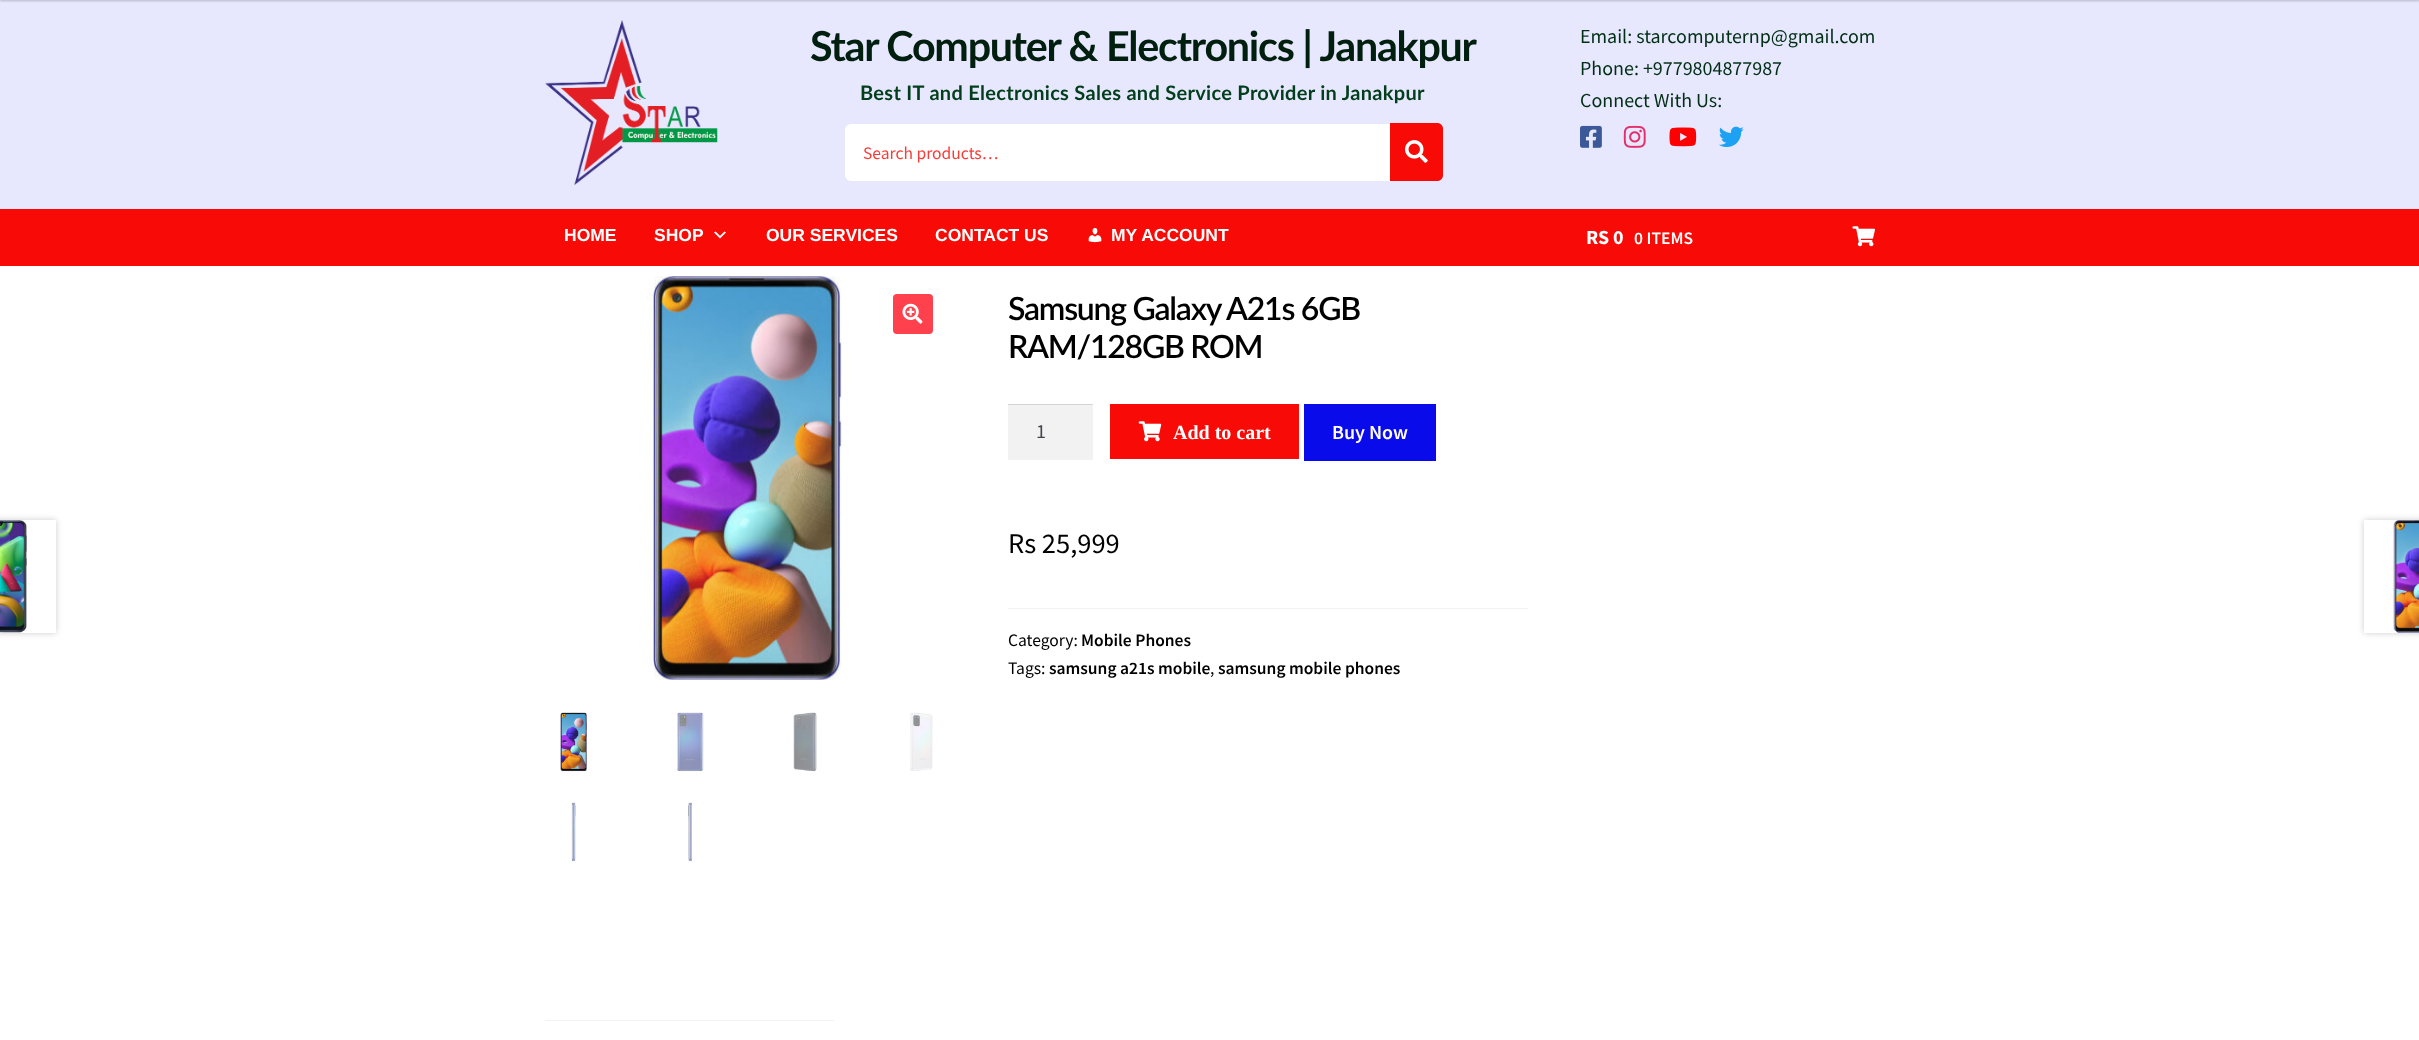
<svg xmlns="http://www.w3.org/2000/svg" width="2419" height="1040">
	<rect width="100%" height="100%" fill="#FFFFFF" />
	<rect x="0" y="0" width="2419" height="209" fill="#E7E7FD" />
	<rect x="0" y="-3" width="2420" height="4" fill="#000000" fill-opacity="0.2" filter="blur(1px)" />
	<image x="545" y="20" width="173" height="165" href="assets/img1.png" />
	<text x="810" y="61" font-family="Lato" font-size="41.25" font-weight="700" letter-spacing="-1.25" fill="#011F0E">Star Computer &amp; Electronics | Janakpur</text>
	<text x="860" y="100" font-family="Lato" font-size="20" font-weight="700" letter-spacing="0.3" fill="#023E1B">Best IT and Electronics Sales and Service Provider in Janakpur</text>
	<g font-family="Source Sans Pro" font-size="20" fill="#012F14">
		<text x="1580" y="43">Email: starcomputernp@gmail.com</text>
		<text x="1580" y="75">Phone: +9779804877987</text>
		<text x="1580" y="107">Connect With Us:</text>
	</g>
	<image x="1580" y="125" width="22" height="23" href="assets/img2.png" />
	<image x="1623" y="125" width="23" height="23" href="assets/img3.png" />
	<image x="1669" y="127" width="28" height="20" href="assets/img4.png" />
	<image x="1719" y="126" width="25" height="21" href="assets/img5.png" />
	<rect x="845" y="124" width="596" height="57" rx="6" fill="#FFFFFF" />
	<text x="863" y="159" font-family="Source Sans Pro" font-size="17.5" fill="#F93C38">Search products…</text>
	<path d="M1390 123H1437C1440.5 123 1443 125.5 1443 129V175C1443 178.5 1440.5 181 1437 181H1390Z" fill="#F80B06" />
	<image x="1405" y="140" width="23" height="23" href="assets/img6.png" />
	<rect x="0" y="209" width="2419" height="57" fill="#F80B06" />
	<g font-family="Liberation Sans" font-size="17.5" font-weight="700" fill="#FFFFFF">
		<text x="564" y="241">HOME</text>
		<text x="654" y="241">SHOP</text>
	</g>
	<image x="714" y="231" width="12" height="8" href="assets/img7.png" />
	<g font-family="Liberation Sans" font-size="17.5" font-weight="700" fill="#FFFFFF">
		<text x="766" y="241">OUR SERVICES</text>
		<text x="935" y="241">CONTACT US</text>
	</g>
	<image x="1088" y="228" width="14" height="15" href="assets/img8.png" />
	<text x="1111" y="241" font-family="Liberation Sans" font-size="17.5" font-weight="700" fill="#FFFFFF">MY ACCOUNT</text>
	<text x="1586" y="244" font-family="Source Sans Pro" font-size="20" font-weight="700" fill="#FFFFFF">RS 0</text>
	<text x="1634" y="244" font-family="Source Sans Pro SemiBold" font-size="17.5" font-weight="600" fill="#FFFFFF">0 ITEMS</text>
	<image x="1852" y="226" width="23" height="21" href="assets/img9.png" />
	<image x="646" y="276" width="196" height="404" href="assets/img10.png" />
	<rect x="893" y="294" width="40" height="40" rx="4" fill="#FF414D" />
	<image x="902" y="303" width="21" height="21" href="assets/img11.png" />
	<image x="560" y="712" width="27" height="60" href="assets/img12.png" />
	<image x="677" y="712" width="27" height="60" href="assets/img13.png" />
	<image x="793" y="712" width="24" height="60" href="assets/img14.png" />
	<image x="910" y="712" width="23" height="59" href="assets/img15.png" />
	<image x="571" y="802" width="5" height="60" href="assets/img16.png" />
	<image x="688" y="802" width="4" height="60" href="assets/img17.png" />
	<g font-family="Lato" font-size="32" font-weight="600" letter-spacing="-1.25" fill="#000000">
		<text x="1008" y="320">Samsung Galaxy A21s 6GB</text>
		<text x="1008" y="358">RAM/128GB ROM</text>
	</g>
	<rect x="1008" y="405" width="85" height="55" fill="#F2F2F2" />
	<rect x="1008" y="404" width="85" height="1" fill="#D4D4D4" />
	<text x="1036" y="438" font-family="Source Sans Pro" font-size="20" fill="#43454B">1</text>
	<rect x="1110" y="404" width="189" height="55" fill="#F80B06" />
	<image x="1138" y="421" width="24" height="21" href="assets/img18.png" />
	<text x="1173" y="439" font-family="Liberation Serif" font-size="20" font-weight="700" fill="#FFFFFF">Add to cart</text>
	<rect x="1304" y="404" width="132" height="57" fill="#0A0BEB" />
	<text x="1332" y="439" font-family="Source Sans Pro SemiBold" font-size="20" font-weight="600" fill="#FFFFFF">Buy Now</text>
	<text x="1008" y="553" font-family="Source Sans Pro" font-size="28.5" fill="#000000">Rs 25,999</text>
	<rect x="1008" y="608" width="520" height="1" fill="#F2F2F2" />
	<text x="1008" y="646" font-family="Source Sans Pro" font-size="17.5" fill="#000000">Category:</text>
	<text x="1081" y="646" font-family="Source Sans Pro SemiBold" font-size="17.5" font-weight="600" fill="#000000">Mobile Phones</text>
	<text x="1008" y="674" font-family="Source Sans Pro" font-size="17.5" fill="#000000">Tags:</text>
	<text x="1049" y="674" font-family="Source Sans Pro SemiBold" font-size="17.5" font-weight="600" fill="#000000">samsung a21s mobile</text>
	<text x="1210" y="674" font-family="Source Sans Pro" font-size="17.5" fill="#000000">,</text>
	<text x="1218" y="674" font-family="Source Sans Pro SemiBold" font-size="17.5" font-weight="600" fill="#000000">samsung mobile phones</text>
	<rect x="-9" y="520" width="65" height="113" fill="#000000" fill-opacity="0.2" filter="blur(3px)" />
	<rect x="27" y="520" width="29" height="113" fill="#FFFFFF" />
	<image x="0" y="520" width="27" height="113" href="assets/img19.png" />
	<rect x="2364" y="520" width="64" height="113" fill="#000000" fill-opacity="0.2" filter="blur(3px)" />
	<rect x="2364" y="520" width="28" height="113" fill="#FFFFFF" />
	<image x="2392" y="520" width="27" height="113" href="assets/img20.png" />
	<rect x="545" y="1020" width="289" height="1" fill="#F2F2F2" />
</svg>
